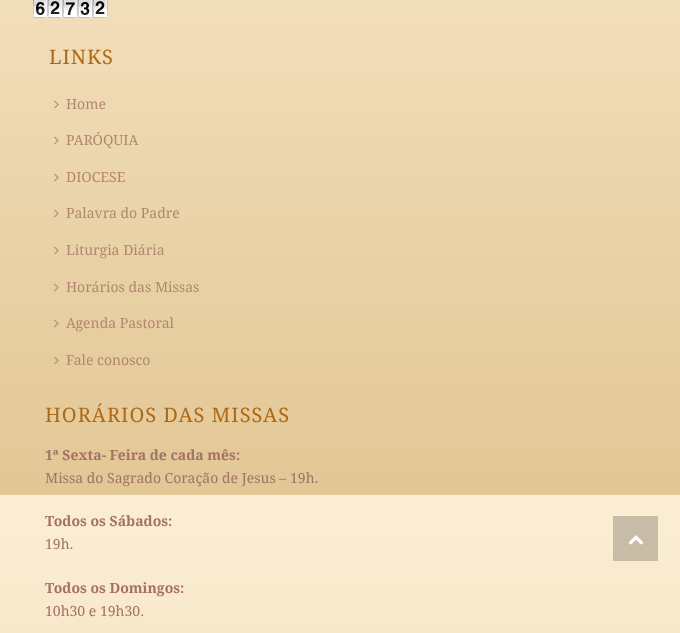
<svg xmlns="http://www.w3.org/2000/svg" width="680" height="633">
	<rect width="100%" height="100%" fill="#FFFFFF" />
	<image x="0" y="0" width="680" height="633" href="assets/img1.png" />
	<image x="33" y="0" width="75" height="18" href="assets/img2.png" />
	<text x="49" y="64" font-family="Droid Serif" font-size="20" letter-spacing="1" fill="#AD6916">LINKS</text>
	<image x="54" y="100" width="5" height="9" href="assets/img3.png" />
	<text x="66" y="109" font-family="Droid Serif" font-size="14" fill="#B28770">Home</text>
	<image x="54" y="136" width="5" height="9" href="assets/img4.png" />
	<text x="66" y="145" font-family="Droid Serif" font-size="14" fill="#B28770">PARÓQUIA</text>
	<image x="54" y="173" width="5" height="9" href="assets/img5.png" />
	<text x="66" y="182" font-family="Droid Serif" font-size="14" fill="#B28770">DIOCESE</text>
	<image x="54" y="209" width="5" height="9" href="assets/img6.png" />
	<text x="66" y="218" font-family="Droid Serif" font-size="14" fill="#B28770">Palavra do Padre</text>
	<image x="54" y="246" width="5" height="9" href="assets/img7.png" />
	<text x="66" y="255" font-family="Droid Serif" font-size="14" fill="#B28770">Liturgia Diária</text>
	<image x="54" y="283" width="5" height="9" href="assets/img8.png" />
	<text x="66" y="292" font-family="Droid Serif" font-size="14" fill="#B28770">Horários das Missas</text>
	<image x="54" y="319" width="5" height="9" href="assets/img9.png" />
	<text x="66" y="328" font-family="Droid Serif" font-size="14" fill="#B28770">Agenda Pastoral</text>
	<image x="54" y="356" width="5" height="9" href="assets/img10.png" />
	<text x="66" y="365" font-family="Droid Serif" font-size="14" fill="#B28770">Fale conosco</text>
	<text x="45" y="422" font-family="Droid Serif" font-size="20" letter-spacing="1" fill="#AD6916">HORÁRIOS DAS MISSAS</text>
	<text x="45" y="460" font-family="Droid Serif" font-size="14" font-weight="700" fill="#A37166">1ª Sexta- Feira de cada mês:</text>
	<text x="45" y="483" font-family="Droid Serif" font-size="14" fill="#A37166">Missa do Sagrado Coração de Jesus – 19h.</text>
	<text x="45" y="526" font-family="Droid Serif" font-size="14" font-weight="700" fill="#A37166">Todos os Sábados:</text>
	<text x="45" y="549" font-family="Droid Serif" font-size="14" fill="#A37166">19h.</text>
	<text x="45" y="593" font-family="Droid Serif" font-size="14" font-weight="700" fill="#A37166">Todos os Domingos:</text>
	<text x="45" y="616" font-family="Droid Serif" font-size="14" fill="#A37166">10h30 e 19h30.</text>
	<rect x="613" y="516" width="45" height="45" fill="#000000" fill-opacity="0.2" />
	<image x="628" y="535" width="16" height="10" href="assets/img11.png" />
</svg>
